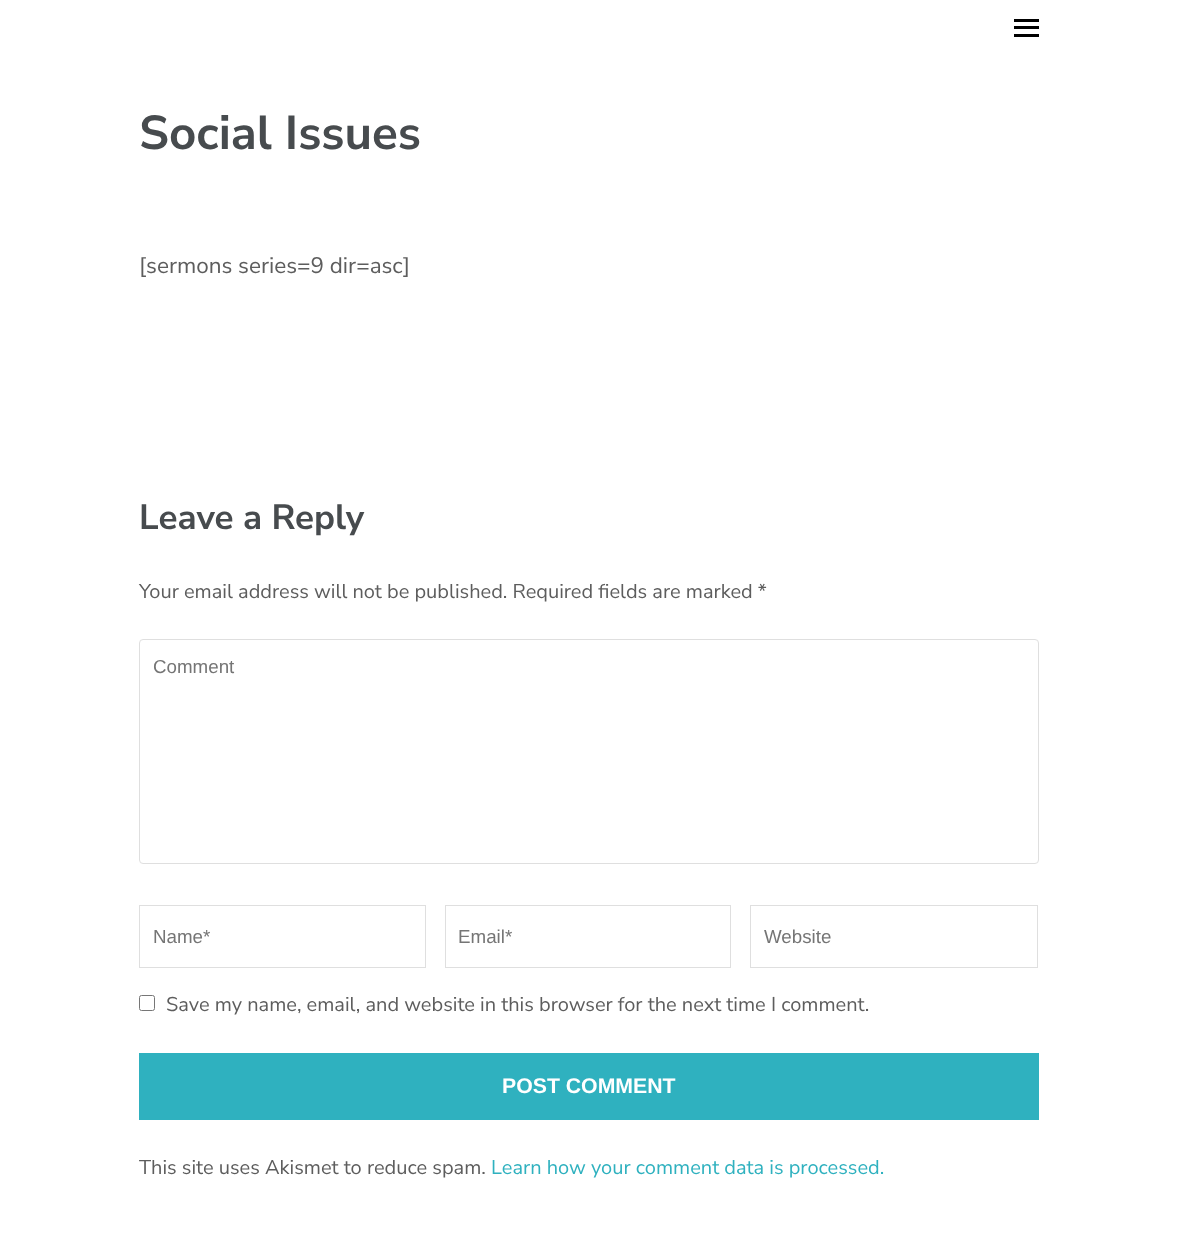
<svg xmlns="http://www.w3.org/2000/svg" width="1177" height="1237">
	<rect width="100%" height="100%" fill="#FFFFFF" />
	<rect x="1014" y="19" width="25" height="3" fill="#000000" />
	<rect x="1014" y="26" width="25" height="3" fill="#000000" />
	<rect x="1014" y="34" width="25" height="3" fill="#000000" />
	<text x="139" y="149" font-family="Nunito Sans" font-size="47.5" font-weight="700" fill="#474B4E">Social Issues</text>
	<text x="139" y="273" font-family="Nunito Sans" font-size="22.5" fill="#5D5D5D">[sermons series=9 dir=asc]</text>
	<text x="139" y="529" font-family="Nunito Sans" font-size="35" font-weight="700" fill="#474B4E">Leave a Reply</text>
	<text x="139" y="598" font-family="Nunito Sans" font-size="20" fill="#5D5D5D">Your email address will not be published. Required fields are marked *</text>
	<rect x="139.5" y="639.5" width="899" height="224" rx="3.5" fill="none" stroke="#DFDFDF" />
	<text x="153" y="673" font-family="Liberation Sans" font-size="18.75" fill="#757575">Comment</text>
	<rect x="139.5" y="905.5" width="286" height="62" fill="none" stroke="#DFDFDF" />
	<text x="153" y="943" font-family="Liberation Sans" font-size="18.75" fill="#757575">Name*</text>
	<rect x="445.5" y="905.5" width="285" height="62" fill="none" stroke="#DFDFDF" />
	<text x="458" y="943" font-family="Liberation Sans" font-size="18.75" fill="#757575">Email*</text>
	<rect x="750.5" y="905.5" width="287" height="62" fill="none" stroke="#DFDFDF" />
	<text x="764" y="943" font-family="Liberation Sans" font-size="18.75" fill="#757575">Website</text>
	<rect x="139.5" y="995.5" width="15" height="15" rx="2" fill="none" stroke="#767676" />
	<text x="166" y="1011" font-family="Nunito Sans" font-size="20" fill="#5D5D5D">Save my name, email, and website in this browser for the next time I comment.</text>
	<rect x="139" y="1053" width="900" height="67" fill="#2FB1BF" />
	<text x="502" y="1093" font-family="Liberation Sans" font-size="21.25" font-weight="700" fill="#FFFFFF">POST COMMENT</text>
	<text x="139" y="1174" font-family="Nunito Sans" font-size="20" fill="#5D5D5D">This site uses Akismet to reduce spam.</text>
	<text x="491" y="1174" font-family="Nunito Sans" font-size="20" fill="#2FB1BF">Learn how your comment data is processed.</text>
</svg>
